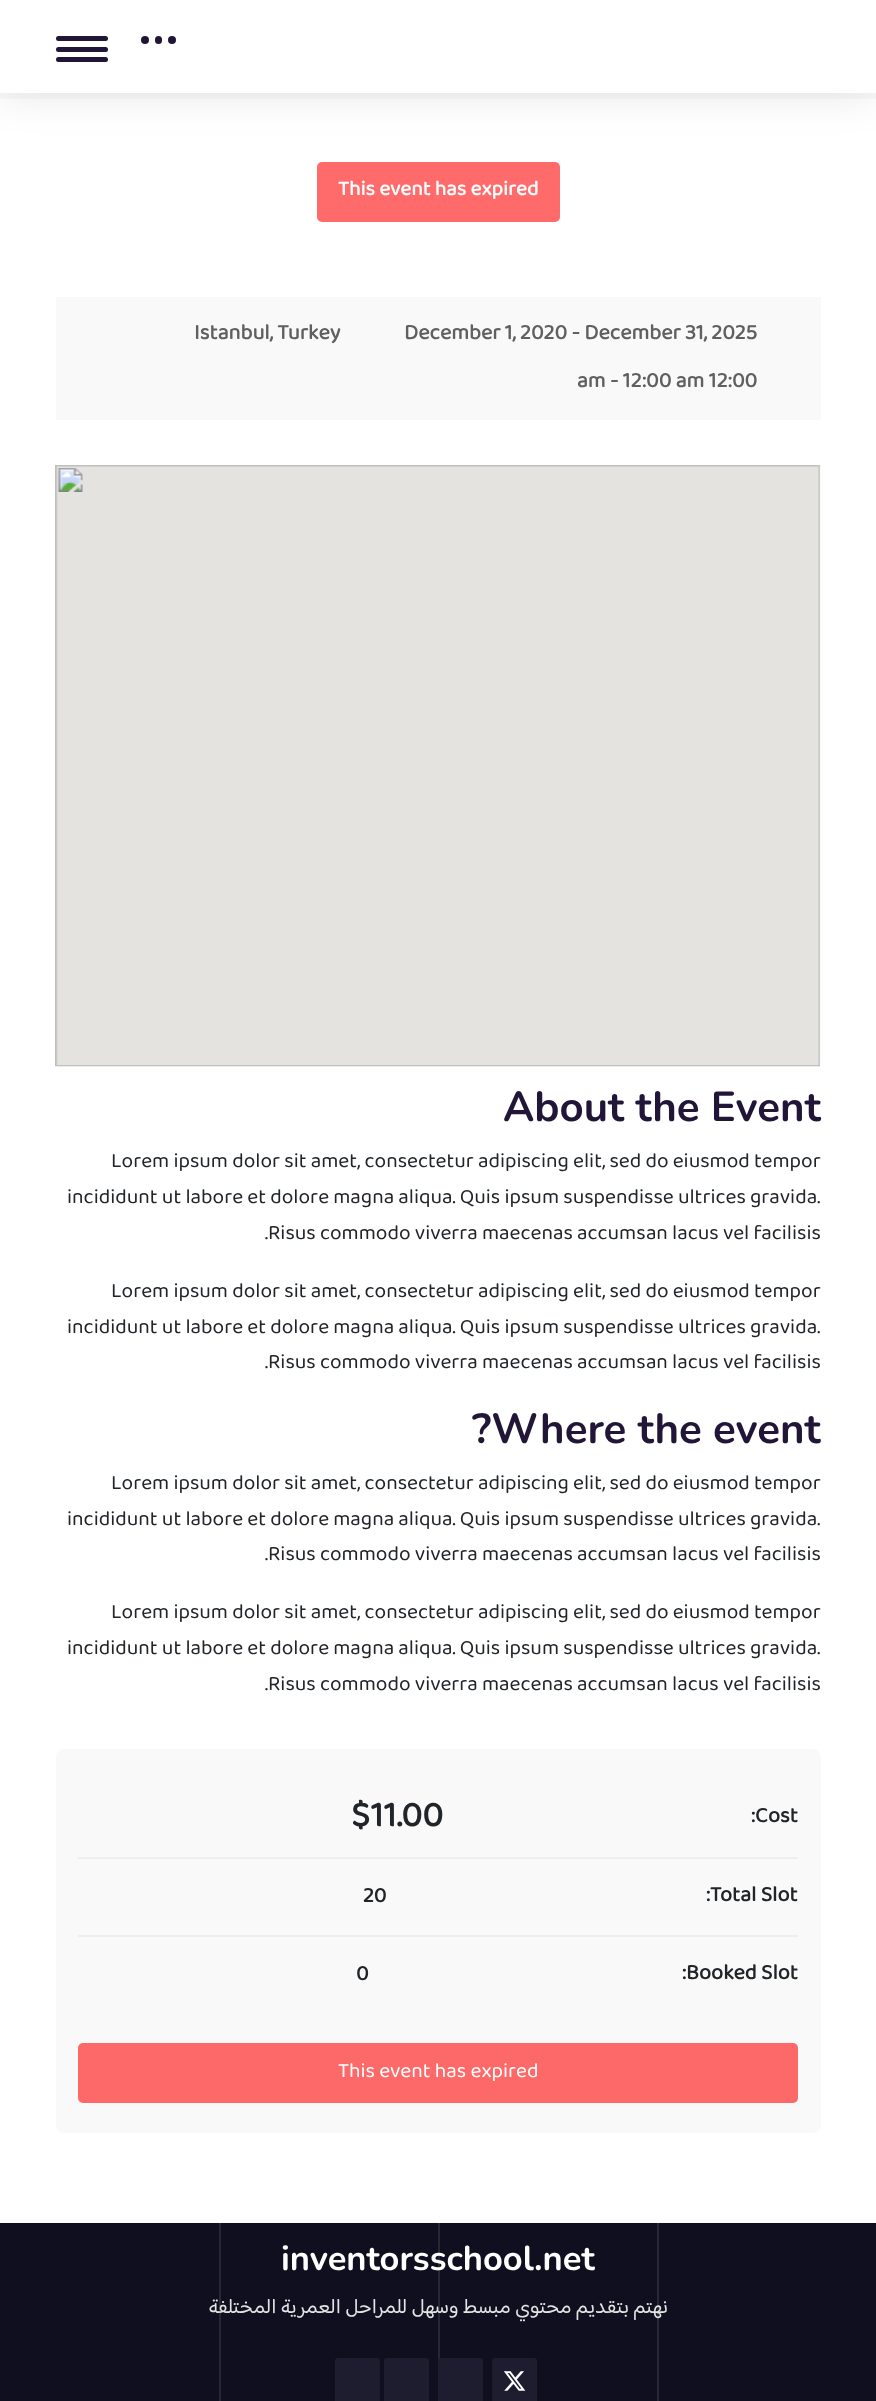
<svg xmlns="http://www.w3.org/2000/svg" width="876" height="2401">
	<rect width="100%" height="100%" fill="#FFFFFF" />
	<rect x="0" y="93" width="876" height="6" fill="#F8F9F8" />
	<rect x="0" y="3" width="876" height="93" fill="#000000" fill-opacity="0.09" filter="blur(21px)" />
	<rect x="0" y="0" width="876" height="93" fill="#FFFFFF" />
	<rect x="56" y="36" width="52" height="5" rx="2.5" fill="#221638" />
	<rect x="56" y="47" width="52" height="5" rx="2.5" fill="#221638" />
	<rect x="56" y="57" width="52" height="5" rx="2.5" fill="#221638" />
	<circle cx="145" cy="40" r="4" fill="#221638" />
	<rect x="155" y="36" width="7" height="8" rx="3.5" fill="#221638" />
	<circle cx="172" cy="40" r="4" fill="#221638" />
	<rect x="317" y="162" width="243" height="60" rx="5" fill="#FF6B6B" />
	<text x="338" y="195" font-family="'Baloo Bhaijaan 2'" font-size="21" font-weight="700" fill="#FFFFFF">This event has expired</text>
	<rect x="56" y="297" width="765" height="123" fill="#F8F9F8" />
	<g font-family="'Baloo Bhaijaan 2'" font-size="21.75" font-weight="700" fill="#606060">
		<text x="194" y="339">Istanbul, Turkey</text>
		<text x="404" y="339">December 1, 2020 - December 31, 2025</text>
		<text x="577" y="387">am - 12:00 am 12:00</text>
	</g>
	<image x="55" y="465" width="766" height="602" href="assets/img1.png" />
	<text x="503" y="1121" font-family="Nunito" font-size="42" font-weight="700" fill="#221638">About the Event</text>
	<g font-family="'Baloo Bhaijaan 2'" font-size="21" fill="#212529">
		<text x="111" y="1167">Lorem ipsum dolor sit amet, consectetur adipiscing elit, sed do eiusmod tempor</text>
		<text x="67" y="1203">incididunt ut labore et dolore magna aliqua. Quis ipsum suspendisse ultrices gravida.</text>
		<text x="265" y="1239">.Risus commodo viverra maecenas accumsan lacus vel facilisis</text>
		<text x="111" y="1297">Lorem ipsum dolor sit amet, consectetur adipiscing elit, sed do eiusmod tempor</text>
		<text x="67" y="1333">incididunt ut labore et dolore magna aliqua. Quis ipsum suspendisse ultrices gravida.</text>
		<text x="265" y="1368">.Risus commodo viverra maecenas accumsan lacus vel facilisis</text>
	</g>
	<text x="472" y="1443" font-family="Nunito" font-size="42" font-weight="700" fill="#221638">?Where the event</text>
	<g font-family="'Baloo Bhaijaan 2'" font-size="21" fill="#212529">
		<text x="111" y="1489">Lorem ipsum dolor sit amet, consectetur adipiscing elit, sed do eiusmod tempor</text>
		<text x="67" y="1525">incididunt ut labore et dolore magna aliqua. Quis ipsum suspendisse ultrices gravida.</text>
		<text x="265" y="1560">.Risus commodo viverra maecenas accumsan lacus vel facilisis</text>
		<text x="111" y="1618">Lorem ipsum dolor sit amet, consectetur adipiscing elit, sed do eiusmod tempor</text>
		<text x="67" y="1654">incididunt ut labore et dolore magna aliqua. Quis ipsum suspendisse ultrices gravida.</text>
		<text x="265" y="1690">.Risus commodo viverra maecenas accumsan lacus vel facilisis</text>
	</g>
	<rect x="56" y="1749" width="765" height="384" rx="8" fill="#F8F9F8" />
	<text x="351" y="1826" font-family="'Baloo Bhaijaan 2'" font-size="36" font-weight="700" fill="#212529">$11.00</text>
	<text x="751" y="1822" font-family="'Baloo Bhaijaan 2'" font-size="21.75" font-weight="700" fill="#212529">:Cost</text>
	<rect x="78" y="1857" width="720" height="2" fill="#EEEEEE" />
	<g font-family="'Baloo Bhaijaan 2'" font-size="21.75" font-weight="700" fill="#212529">
		<text x="363" y="1902">20</text>
		<text x="706" y="1901">:Total Slot</text>
	</g>
	<rect x="78" y="1935" width="720" height="2" fill="#EEEEEE" />
	<g font-family="'Baloo Bhaijaan 2'" font-size="21.75" font-weight="700" fill="#212529">
		<text x="356" y="1980">0</text>
		<text x="682" y="1979">:Booked Slot</text>
	</g>
	<rect x="78" y="2043" width="720" height="60" rx="5" fill="#FC6968" />
	<text x="338" y="2077" font-family="'Baloo Bhaijaan 2'" font-size="21" fill="#FFFFFF">This event has expired</text>
	<rect x="0" y="2223" width="876" height="178" fill="#100F1F" />
	<rect x="219" y="2223" width="2" height="178" fill="#282735" />
	<rect x="438" y="2223" width="2" height="178" fill="#282735" />
	<rect x="657" y="2223" width="2" height="178" fill="#282735" />
	<text x="281" y="2270" font-family="Nunito" font-size="34.5" font-weight="700" fill="#FFFFFF">inventorsschool.net</text>
	<text x="668" y="2313" font-family="'Baloo Bhaijaan 2'" font-size="21" direction="rtl" fill="#E4E4E4">نهتم بتقديم محتوي مبسط وسهل للمراحل العمرية المختلفة</text>
	<rect x="335" y="2358" width="45" height="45" rx="3" fill="#1E1D2F" />
	<rect x="384" y="2358" width="45" height="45" rx="3" fill="#1E1D2F" />
	<rect x="438" y="2358" width="45" height="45" rx="3" fill="#1E1D2F" />
	<rect x="492" y="2358" width="45" height="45" rx="3" fill="#1E1D2F" />
	<image x="503" y="2371" width="23" height="20" href="assets/img2.png" />
</svg>
